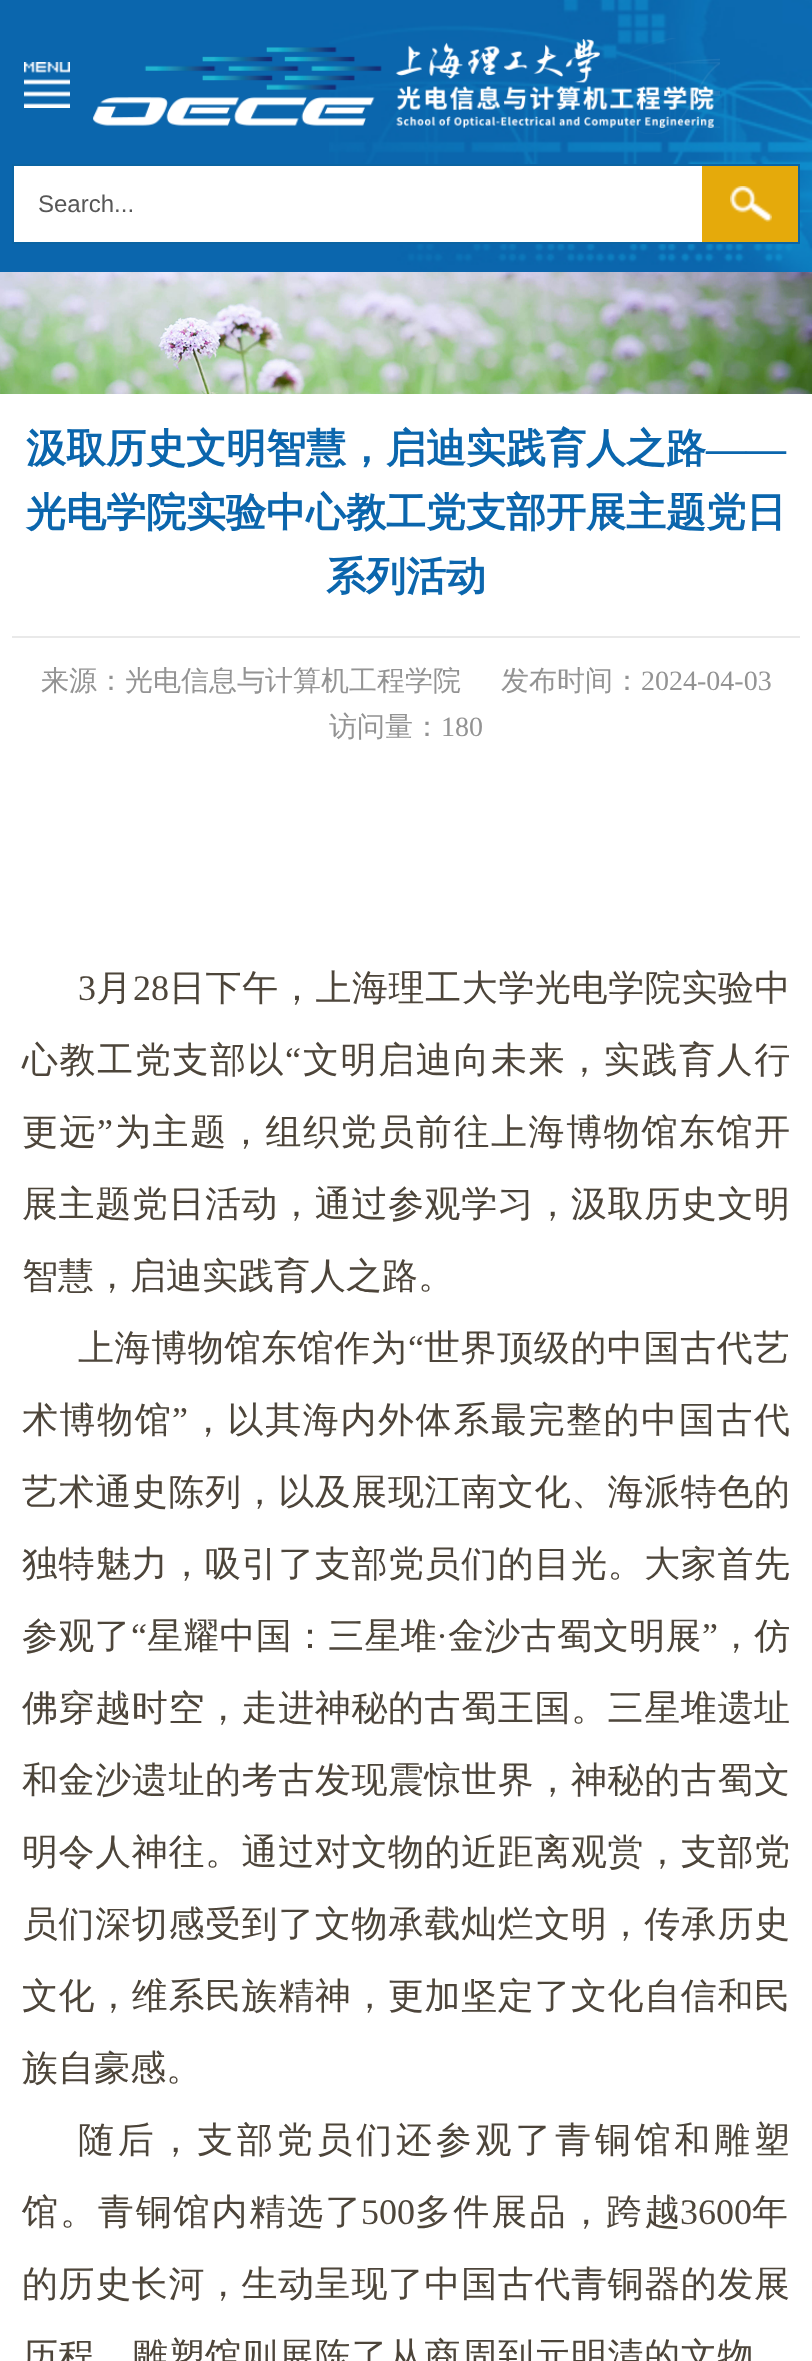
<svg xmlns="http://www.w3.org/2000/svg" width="812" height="2361">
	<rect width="100%" height="100%" fill="#FFFFFF" />
	<rect x="0" y="0" width="329" height="272" fill="#0B66AD" />
	<image x="329" y="0" width="483" height="272" href="assets/img1.png" />
	<image x="24" y="62" width="46" height="46" href="assets/img2.png" />
	<image x="93" y="38" width="627" height="96" href="assets/img3.png" />
	<rect x="14" y="166" width="688" height="76" fill="#FFFFFF" />
	<rect x="13" y="165" width="786" height="78" fill="none" stroke="#0B64A3" stroke-width="2" />
	<text x="38" y="212" font-family="Liberation Sans" font-size="24" fill="#575757">Search...</text>
	<rect x="702" y="166" width="96" height="76" fill="#E5AA0B" />
	<image x="730" y="186" width="42" height="36" href="assets/img4.png" />
	<image x="0" y="272" width="812" height="122" href="assets/img5.png" />
	<text x="26" y="462" font-family="WenQuanYi Zen Hei" font-size="40" font-weight="700" fill="#0B66AD">汲取历史文明智慧，启迪实践育人之路</text>
	<text x="706" y="462" font-family="Liberation Serif" font-size="40" font-weight="700" fill="#0B66AD">——</text>
	<g font-family="WenQuanYi Zen Hei" font-size="40" font-weight="700" fill="#0B66AD">
		<text x="26" y="526">光电学院实验中心教工党支部开展主题党日</text>
		<text x="326" y="590">系列活动</text>
	</g>
	<rect x="12" y="636" width="788" height="2" fill="#E9E9E9" />
	<g font-family="WenQuanYi Zen Hei" font-size="28" font-weight="500" fill="#939393">
		<text x="41" y="690">来源：光电信息与计算机工程学院</text>
		<text x="501" y="690">发布时间：</text>
	</g>
	<text x="641" y="690" font-family="Liberation Serif" font-size="28" fill="#939393">2024-04-03</text>
	<text x="329" y="736" font-family="WenQuanYi Zen Hei" font-size="28" font-weight="500" fill="#939393">访问量：</text>
	<text x="441" y="736" font-family="Liberation Serif" font-size="28" fill="#939393">180</text>
	<text x="78" y="1000" font-family="Liberation Serif" font-size="36" fill="#4D453A">3</text>
	<text x="96" y="1000" font-family="WenQuanYi Zen Hei" font-size="36" font-weight="500" fill="#4D453A">月</text>
	<text x="133" y="1000" font-family="Liberation Serif" font-size="36" fill="#4D453A">28</text>
	<text x="169" y="1000" font-family="WenQuanYi Zen Hei" font-size="36" font-weight="500" letter-spacing="0.6" fill="#4D453A">日下午，上海理工大学光电学院实验中</text>
	<text x="22" y="1072" font-family="WenQuanYi Zen Hei" font-size="36" font-weight="500" letter-spacing="1.6" fill="#4D453A">心教工党支部以</text>
	<text x="285" y="1072" font-family="Liberation Serif" font-size="36" letter-spacing="1.6" fill="#4D453A">“</text>
	<g font-family="WenQuanYi Zen Hei" font-size="36" font-weight="500" letter-spacing="1.6" fill="#4D453A">
		<text x="303" y="1072">文明启迪向未来，实践育人行</text>
		<text x="22" y="1144">更远</text>
	</g>
	<text x="97" y="1144" font-family="Liberation Serif" font-size="36" letter-spacing="1.6" fill="#4D453A">”</text>
	<text x="115" y="1144" font-family="WenQuanYi Zen Hei" font-size="36" font-weight="500" letter-spacing="1.6" fill="#4D453A">为主题，组织党员前往上海博物馆东馆开</text>
	<text x="22" y="1216" font-family="WenQuanYi Zen Hei" font-size="36" font-weight="500" letter-spacing="0.6" fill="#4D453A">展主题党日活动，通过参观学习，汲取历史文明</text>
	<text x="22" y="1288" font-family="WenQuanYi Zen Hei" font-size="36" font-weight="500" fill="#4D453A">智慧，启迪实践育人之路。</text>
	<text x="78" y="1360" font-family="WenQuanYi Zen Hei" font-size="36" font-weight="500" letter-spacing="0.6" fill="#4D453A">上海博物馆东馆作为</text>
	<text x="408" y="1360" font-family="Liberation Serif" font-size="36" letter-spacing="0.6" fill="#4D453A">“</text>
	<text x="424" y="1360" font-family="WenQuanYi Zen Hei" font-size="36" font-weight="500" letter-spacing="0.6" fill="#4D453A">世界顶级的中国古代艺</text>
	<text x="22" y="1432" font-family="WenQuanYi Zen Hei" font-size="36" font-weight="500" letter-spacing="1.6" fill="#4D453A">术博物馆</text>
	<text x="172" y="1432" font-family="Liberation Serif" font-size="36" letter-spacing="1.6" fill="#4D453A">”</text>
	<text x="190" y="1432" font-family="WenQuanYi Zen Hei" font-size="36" font-weight="500" letter-spacing="1.6" fill="#4D453A">，以其海内外体系最完整的中国古代</text>
	<g font-family="WenQuanYi Zen Hei" font-size="36" font-weight="500" letter-spacing="0.6" fill="#4D453A">
		<text x="22" y="1504">艺术通史陈列，以及展现江南文化、海派特色的</text>
		<text x="22" y="1576">独特魅力，吸引了支部党员们的目光。大家首先</text>
	</g>
	<text x="22" y="1648" font-family="WenQuanYi Zen Hei" font-size="36" font-weight="500" letter-spacing="0.25" fill="#4D453A">参观了</text>
	<text x="131" y="1648" font-family="Liberation Serif" font-size="36" letter-spacing="0.25" fill="#4D453A">“</text>
	<g font-family="WenQuanYi Zen Hei" font-size="36" font-weight="500" letter-spacing="0.25" fill="#4D453A">
		<text x="147" y="1648">星耀中国：三星堆</text>
		<text x="448" y="1648">金沙古蜀文明展</text>
	</g>
	<text x="702" y="1648" font-family="Liberation Serif" font-size="36" letter-spacing="0.25" fill="#4D453A">”</text>
	<text x="718" y="1648" font-family="WenQuanYi Zen Hei" font-size="36" font-weight="500" letter-spacing="0.25" fill="#4D453A">，仿</text>
	<text x="436" y="1648" font-family="Liberation Serif" font-size="36" fill="#4D453A">·</text>
	<g font-family="WenQuanYi Zen Hei" font-size="36" font-weight="500" letter-spacing="0.6" fill="#4D453A">
		<text x="22" y="1720">佛穿越时空，走进神秘的古蜀王国。三星堆遗址</text>
		<text x="22" y="1792">和金沙遗址的考古发现震惊世界，神秘的古蜀文</text>
		<text x="22" y="1864">明令人神往。通过对文物的近距离观赏，支部党</text>
		<text x="22" y="1936">员们深切感受到了文物承载灿烂文明，传承历史</text>
		<text x="22" y="2008">文化，维系民族精神，更加坚定了文化自信和民</text>
	</g>
	<text x="22" y="2080" font-family="WenQuanYi Zen Hei" font-size="36" font-weight="500" fill="#4D453A">族自豪感。</text>
	<text x="78" y="2152" font-family="WenQuanYi Zen Hei" font-size="36" font-weight="500" letter-spacing="3.75" fill="#4D453A">随后，支部党员们还参观了青铜馆和雕塑</text>
	<text x="22" y="2224" font-family="WenQuanYi Zen Hei" font-size="36" font-weight="500" letter-spacing="1.9" fill="#4D453A">馆。青铜馆内精选了</text>
	<text x="361" y="2224" font-family="Liberation Serif" font-size="36" fill="#4D453A">500</text>
	<text x="415" y="2224" font-family="WenQuanYi Zen Hei" font-size="36" font-weight="500" letter-spacing="2.25" fill="#4D453A">多件展品，跨越</text>
	<text x="680" y="2224" font-family="Liberation Serif" font-size="36" fill="#4D453A">3600</text>
	<text x="752" y="2224" font-family="WenQuanYi Zen Hei" font-size="36" font-weight="500" fill="#4D453A">年</text>
	<g font-family="WenQuanYi Zen Hei" font-size="36" font-weight="500" letter-spacing="0.6" fill="#4D453A">
		<text x="22" y="2296">的历史长河，生动呈现了中国古代青铜器的发展</text>
		<text x="22" y="2368">历程。雕塑馆则展陈了从商周到元明清的文物</text>
	</g>
</svg>
